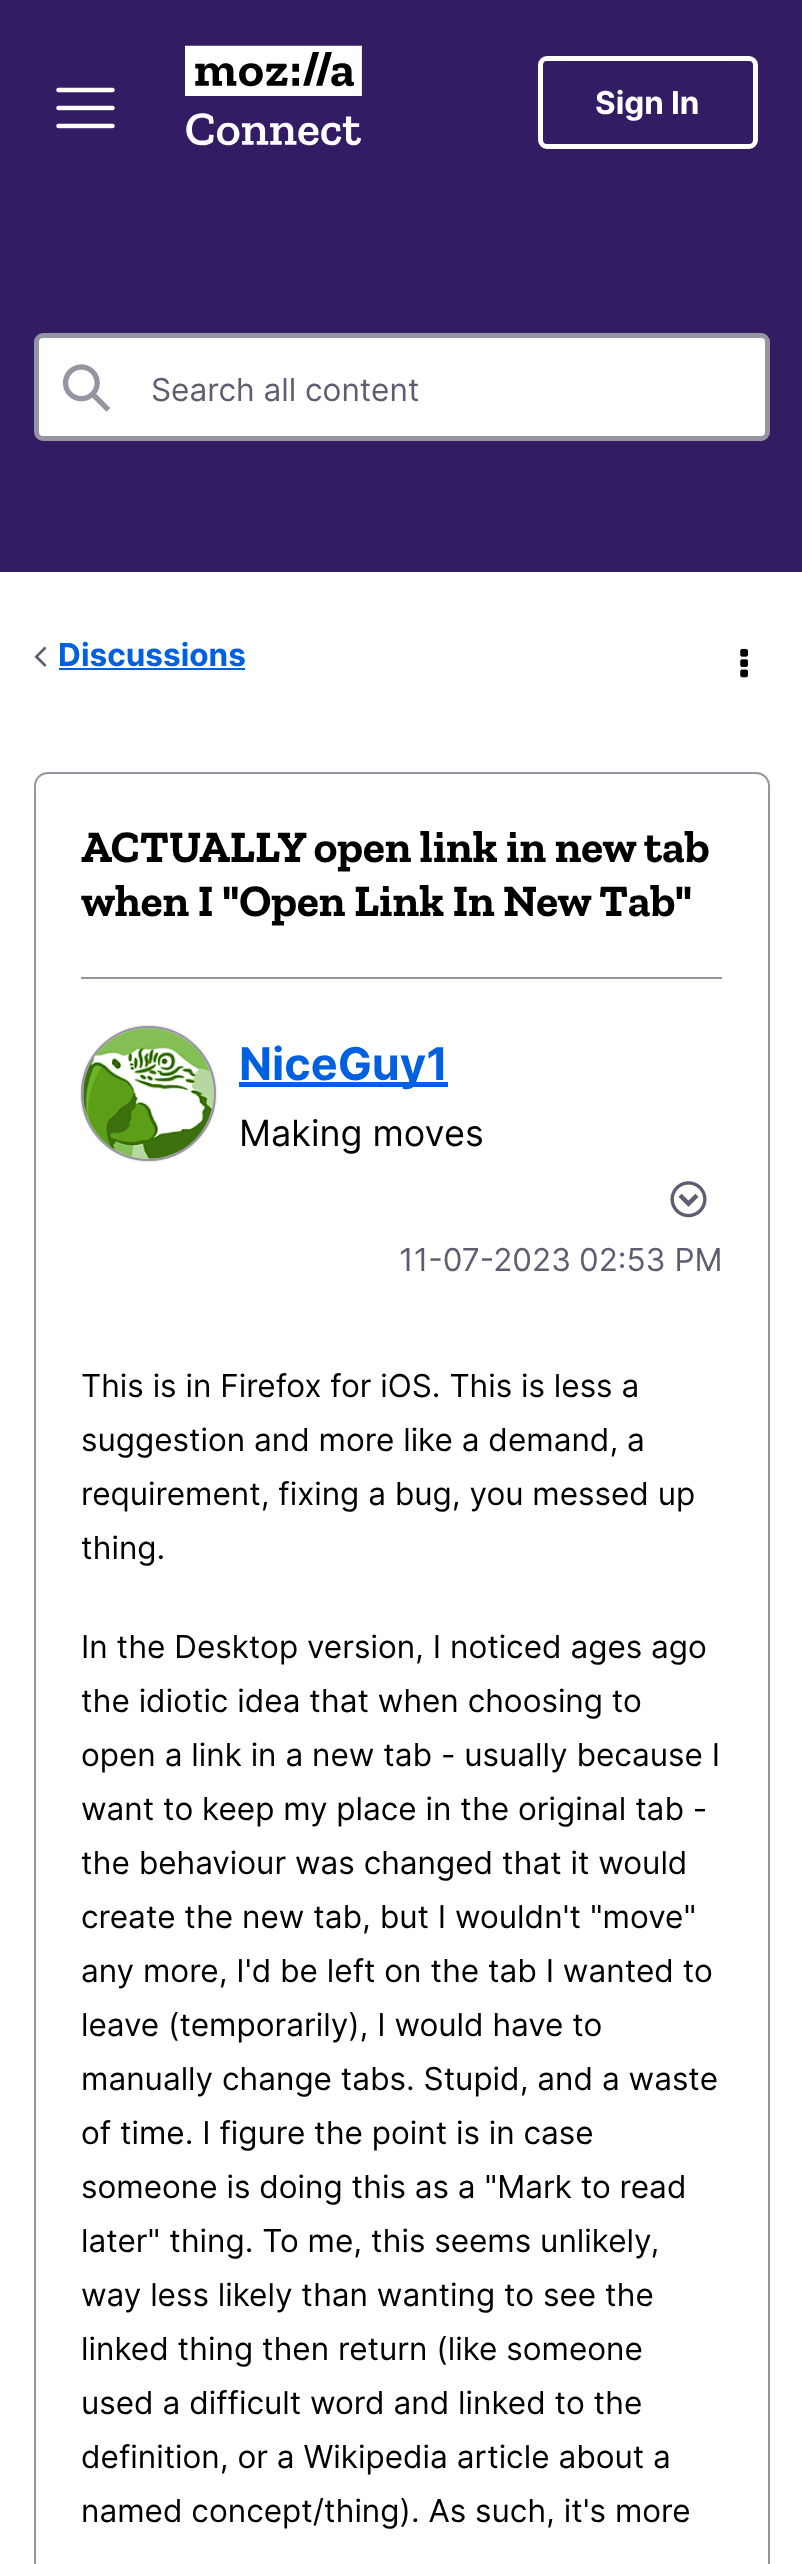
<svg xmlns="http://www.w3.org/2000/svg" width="802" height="2564">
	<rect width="100%" height="100%" fill="#FFFFFF" />
	<rect x="0" y="0" width="802" height="572" fill="#321C64" />
	<image x="56" y="87" width="59" height="42" href="assets/img1.png" />
	<image x="185" y="45" width="177" height="101" href="assets/img2.png" />
	<rect x="540.5" y="58.5" width="215" height="88" rx="6.5" fill="none" stroke="#FFFFFF" stroke-width="5" />
	<text x="595" y="114" font-family="Inter" font-size="31.5" font-weight="700" fill="#FFFFFF">Sign In</text>
	<rect x="36.5" y="335.5" width="731" height="103" rx="6.5" fill="#FFFFFF" stroke="#9595A2" stroke-width="5" />
	<image x="62" y="364" width="49" height="48" href="assets/img3.png" />
	<text x="151" y="401" font-family="Inter" font-size="31.5" fill="#5E5E72">Search all content</text>
	<image x="34" y="646" width="13" height="21" href="assets/img4.png" />
	<text x="58" y="666" font-family="Inter" font-size="31.5" font-weight="700" fill="#0060DF">Discussions</text>
	<rect x="59" y="668" width="186" height="2" fill="#0060DF" />
	<image x="740" y="648" width="8" height="30" href="assets/img5.png" />
	<rect x="35" y="773" width="734" height="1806" rx="13" fill="none" stroke="#9595A2" stroke-width="2" />
	<rect x="81" y="977" width="641" height="2" fill="#9595A2" />
	<g font-family="Zilla Slab" font-size="45" font-weight="700" fill="#000000">
		<text x="81" y="862">ACTUALLY open link in new tab</text>
		<text x="81" y="916">when I "Open Link In New Tab"</text>
	</g>
	<rect x="81" y="1026" width="135" height="135" rx="67.5" fill="#C4C4C4" filter="blur(1px)" />
	<circle cx="148.5" cy="1093.5" r="66.5" fill="none" stroke="#9595A2" stroke-width="2" />
	<image x="83" y="1028" width="131" height="131" href="assets/img6.png" />
	<rect x="239" y="1082" width="209" height="5" fill="#0060DF" />
	<text x="239" y="1080" font-family="Inter" font-size="45" font-weight="700" fill="#0060DF">NiceGuy1</text>
	<text x="239" y="1146" font-family="Inter" font-size="36" fill="#000000">Making moves</text>
	<image x="670" y="1181" width="37" height="37" href="assets/img7.png" />
	<g font-family="Inter" font-size="31.5" fill="#5E5E72">
		<text x="399" y="1271">11-07-2023</text>
		<text x="579" y="1271">02:53 PM</text>
	</g>
	<g font-family="Inter" font-size="31.5" fill="#000000">
		<text x="81" y="1397">This is in Firefox for iOS. This is less a</text>
		<text x="81" y="1451">suggestion and more like a demand, a</text>
		<text x="81" y="1505">requirement, fixing a bug, you messed up</text>
		<text x="81" y="1559">thing.</text>
		<text x="81" y="1658">In the Desktop version, I noticed ages ago</text>
		<text x="81" y="1712">the idiotic idea that when choosing to</text>
		<text x="81" y="1766">open a link in a new tab - usually because I</text>
		<text x="81" y="1820">want to keep my place in the original tab -</text>
		<text x="81" y="1874">the behaviour was changed that it would</text>
		<text x="81" y="1928">create the new tab, but I wouldn't "move"</text>
		<text x="81" y="1982">any more, I'd be left on the tab I wanted to</text>
		<text x="81" y="2036">leave (temporarily), I would have to</text>
		<text x="81" y="2090">manually change tabs. Stupid, and a waste</text>
		<text x="81" y="2144">of time. I figure the point is in case</text>
		<text x="81" y="2198">someone is doing this as a "Mark to read</text>
		<text x="81" y="2252">later" thing. To me, this seems unlikely,</text>
		<text x="81" y="2306">way less likely than wanting to see the</text>
		<text x="81" y="2360">linked thing then return (like someone</text>
		<text x="81" y="2414">used a difficult word and linked to the</text>
		<text x="81" y="2468">definition, or a Wikipedia article about a</text>
		<text x="81" y="2522">named concept/thing). As such, it's more</text>
	</g>
</svg>
